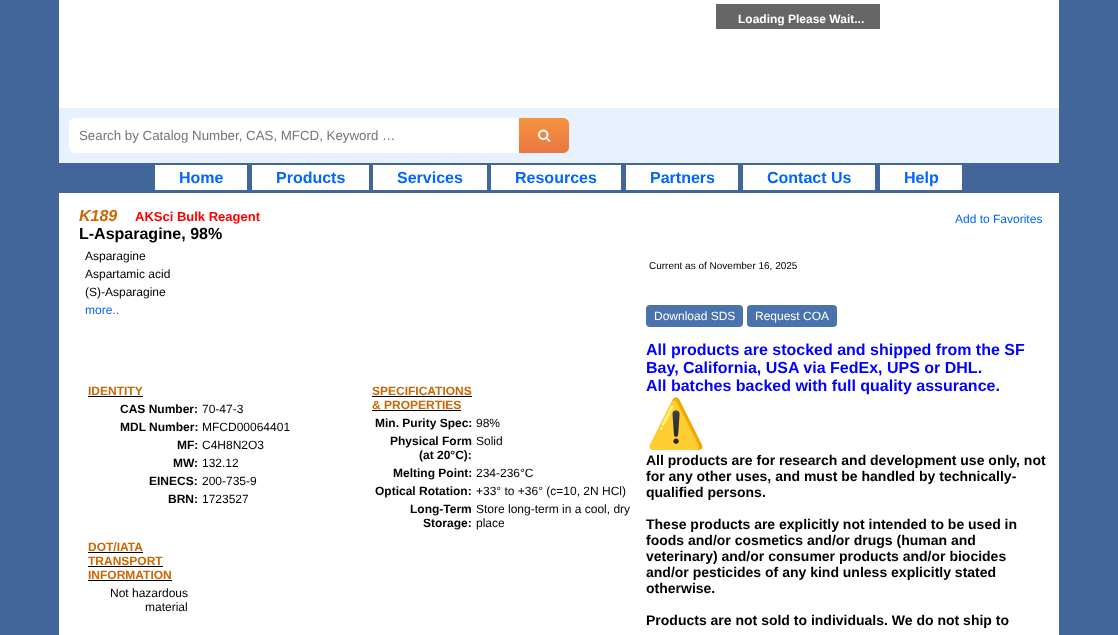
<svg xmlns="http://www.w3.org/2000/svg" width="1118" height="635">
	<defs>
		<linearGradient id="g1" gradientUnits="userSpaceOnUse" x1="544" y1="118" x2="544" y2="153"><stop offset="0" stop-color="#F4943E" /><stop offset="1" stop-color="#EC7544" /></linearGradient>
	</defs>
	<rect width="100%" height="100%" fill="#426699" />
	<rect x="59" y="0" width="1000" height="635" fill="#FFFFFF" />
	<rect x="716" y="4" width="164" height="25" fill="#666666" />
	<text x="738" y="23" font-family="Liberation Sans" font-size="12" font-weight="700" fill="#FFFFFF">Loading Please Wait...</text>
	<text x="79" y="221" font-family="Liberation Sans" font-size="16" font-weight="700" font-style="italic" fill="#CC6600">K189</text>
	<text x="135" y="221" font-family="Liberation Sans" font-size="13" font-weight="700" fill="#FF0000">AKSci Bulk Reagent</text>
	<text x="79" y="239" font-family="Liberation Sans" font-size="16" font-weight="700" fill="#000000">L-Asparagine, 98%</text>
	<text x="955" y="223" font-family="Liberation Sans" font-size="12" fill="#0066FF">Add to Favorites</text>
	<g font-family="Liberation Sans" font-size="12" fill="#000000">
		<text x="85" y="260">Asparagine</text>
		<text x="85" y="278">Aspartamic acid</text>
		<text x="85" y="296">(S)-Asparagine</text>
	</g>
	<text x="85" y="314" font-family="Liberation Sans" font-size="12" fill="#0066FF">more..</text>
	<text x="88" y="395" font-family="Liberation Sans" font-size="12" font-weight="700" fill="#CC6600">IDENTITY</text>
	<rect x="88" y="396" width="55" height="1" fill="#000000" />
	<text x="120" y="413" font-family="Liberation Sans" font-size="12" font-weight="700" fill="#000000">CAS Number:</text>
	<text x="202" y="413" font-family="Liberation Sans" font-size="12" fill="#000000">70-47-3</text>
	<text x="120" y="431" font-family="Liberation Sans" font-size="12" font-weight="700" fill="#000000">MDL Number:</text>
	<text x="202" y="431" font-family="Liberation Sans" font-size="12" fill="#000000">MFCD00064401</text>
	<text x="177" y="449" font-family="Liberation Sans" font-size="12" font-weight="700" fill="#000000">MF:</text>
	<text x="202" y="449" font-family="Liberation Sans" font-size="12" fill="#000000">C4H8N2O3</text>
	<text x="173" y="467" font-family="Liberation Sans" font-size="12" font-weight="700" fill="#000000">MW:</text>
	<text x="202" y="467" font-family="Liberation Sans" font-size="12" fill="#000000">132.12</text>
	<text x="149" y="485" font-family="Liberation Sans" font-size="12" font-weight="700" fill="#000000">EINECS:</text>
	<text x="202" y="485" font-family="Liberation Sans" font-size="12" fill="#000000">200-735-9</text>
	<text x="168" y="503" font-family="Liberation Sans" font-size="12" font-weight="700" fill="#000000">BRN:</text>
	<text x="202" y="503" font-family="Liberation Sans" font-size="12" fill="#000000">1723527</text>
	<text x="372" y="395" font-family="Liberation Sans" font-size="12" font-weight="700" fill="#CC6600">SPECIFICATIONS</text>
	<rect x="372" y="396" width="100" height="1" fill="#000000" />
	<text x="372" y="409" font-family="Liberation Sans" font-size="12" font-weight="700" fill="#CC6600">&amp; PROPERTIES</text>
	<rect x="372" y="410" width="89" height="1" fill="#000000" />
	<text x="375" y="427" font-family="Liberation Sans" font-size="12" font-weight="700" fill="#000000">Min. Purity Spec:</text>
	<text x="476" y="427" font-family="Liberation Sans" font-size="12" fill="#000000">98%</text>
	<g font-family="Liberation Sans" font-size="12" font-weight="700" fill="#000000">
		<text x="390" y="445">Physical Form</text>
		<text x="419" y="459">(at 20°C):</text>
	</g>
	<text x="476" y="445" font-family="Liberation Sans" font-size="12" fill="#000000">Solid</text>
	<text x="393" y="477" font-family="Liberation Sans" font-size="12" font-weight="700" fill="#000000">Melting Point:</text>
	<text x="476" y="477" font-family="Liberation Sans" font-size="12" fill="#000000">234-236°C</text>
	<text x="375" y="495" font-family="Liberation Sans" font-size="12" font-weight="700" fill="#000000">Optical Rotation:</text>
	<text x="476" y="495" font-family="Liberation Sans" font-size="12" fill="#000000">+33° to +36° (c=10, 2N HCl)</text>
	<g font-family="Liberation Sans" font-size="12" font-weight="700" fill="#000000">
		<text x="410" y="513">Long-Term</text>
		<text x="423" y="527">Storage:</text>
	</g>
	<g font-family="Liberation Sans" font-size="12" fill="#000000">
		<text x="476" y="513">Store long-term in a cool, dry</text>
		<text x="476" y="527">place</text>
	</g>
	<text x="88" y="551" font-family="Liberation Sans" font-size="12" font-weight="700" fill="#CC6600">DOT/IATA</text>
	<rect x="88" y="552" width="55" height="1" fill="#000000" />
	<text x="88" y="565" font-family="Liberation Sans" font-size="12" font-weight="700" fill="#CC6600">TRANSPORT</text>
	<rect x="88" y="566" width="75" height="1" fill="#000000" />
	<text x="88" y="579" font-family="Liberation Sans" font-size="12" font-weight="700" fill="#CC6600">INFORMATION</text>
	<rect x="88" y="580" width="84" height="1" fill="#000000" />
	<g font-family="Liberation Sans" font-size="12" fill="#000000">
		<text x="110" y="597">Not hazardous</text>
		<text x="145" y="611">material</text>
	</g>
	<text x="649" y="269" font-family="Liberation Sans" font-size="10" fill="#000000">Current as of November 16, 2025</text>
	<rect x="646" y="305" width="97" height="22" rx="4" fill="#4A72AC" />
	<text x="654" y="320" font-family="Liberation Sans" font-size="12" fill="#FFFFFF">Download SDS</text>
	<rect x="747" y="305" width="90" height="22" rx="4" fill="#4A72AC" />
	<text x="755" y="320" font-family="Liberation Sans" font-size="12" fill="#FFFFFF">Request COA</text>
	<g font-family="Liberation Sans" font-size="16" font-weight="700" fill="#0000FF">
		<text x="646" y="355">All products are stocked and shipped from the SF</text>
		<text x="646" y="373">Bay, California, USA via FedEx, UPS or DHL.</text>
		<text x="646" y="391">All batches backed with full quality assurance.</text>
	</g>
	<text x="646" y="440" font-family="Noto Color Emoji" font-size="48" font-weight="700" fill="#0000FF">⚠️</text>
	<g font-family="Liberation Sans" font-size="14" font-weight="700" fill="#000000">
		<text x="646" y="465">All products are for research and development use only, not</text>
		<text x="646" y="481">for any other uses, and must be handled by technically-</text>
		<text x="646" y="497">qualified persons.</text>
		<text x="646" y="529">These products are explicitly not intended to be used in</text>
		<text x="646" y="545">foods and/or cosmetics and/or drugs (human and</text>
		<text x="646" y="561">veterinary) and/or consumer products and/or biocides</text>
		<text x="646" y="577">and/or pesticides of any kind unless explicitly stated</text>
		<text x="646" y="593">otherwise.</text>
		<text x="646" y="625">Products are not sold to individuals. We do not ship to</text>
	</g>
	<rect x="59" y="108" width="1000" height="55" fill="#E8F1FF" />
	<rect x="69" y="118" width="500" height="35" rx="6" fill="#FFFFFF" />
	<text x="79" y="140" font-family="Liberation Sans" font-size="13.3" fill="#757575">Search by Catalog Number, CAS, MFCD, Keyword …</text>
	<path d="M519 118H563C566.5 118 569 120.5 569 124V147C569 150.5 566.5 153 563 153H519Z" fill="url(#g1)" />
	<image x="538" y="129" width="13" height="13" href="assets/img1.png" />
	<rect x="59" y="163" width="1000" height="30" fill="#426699" />
	<rect x="155" y="165" width="92" height="25" fill="#FFFFFF" />
	<text x="179" y="183" font-family="Liberation Sans" font-size="16" font-weight="700" fill="#0066FF">Home</text>
	<rect x="252" y="165" width="117" height="25" fill="#FFFFFF" />
	<text x="276" y="183" font-family="Liberation Sans" font-size="16" font-weight="700" fill="#0066FF">Products</text>
	<rect x="373" y="165" width="114" height="25" fill="#FFFFFF" />
	<text x="397" y="183" font-family="Liberation Sans" font-size="16" font-weight="700" fill="#0066FF">Services</text>
	<rect x="491" y="165" width="130" height="25" fill="#FFFFFF" />
	<text x="515" y="183" font-family="Liberation Sans" font-size="16" font-weight="700" fill="#0066FF">Resources</text>
	<rect x="626" y="165" width="112" height="25" fill="#FFFFFF" />
	<text x="650" y="183" font-family="Liberation Sans" font-size="16" font-weight="700" fill="#0066FF">Partners</text>
	<rect x="743" y="165" width="132" height="25" fill="#FFFFFF" />
	<text x="767" y="183" font-family="Liberation Sans" font-size="16" font-weight="700" fill="#0066FF">Contact Us</text>
	<rect x="880" y="165" width="82" height="25" fill="#FFFFFF" />
	<text x="904" y="183" font-family="Liberation Sans" font-size="16" font-weight="700" fill="#0066FF">Help</text>
</svg>
